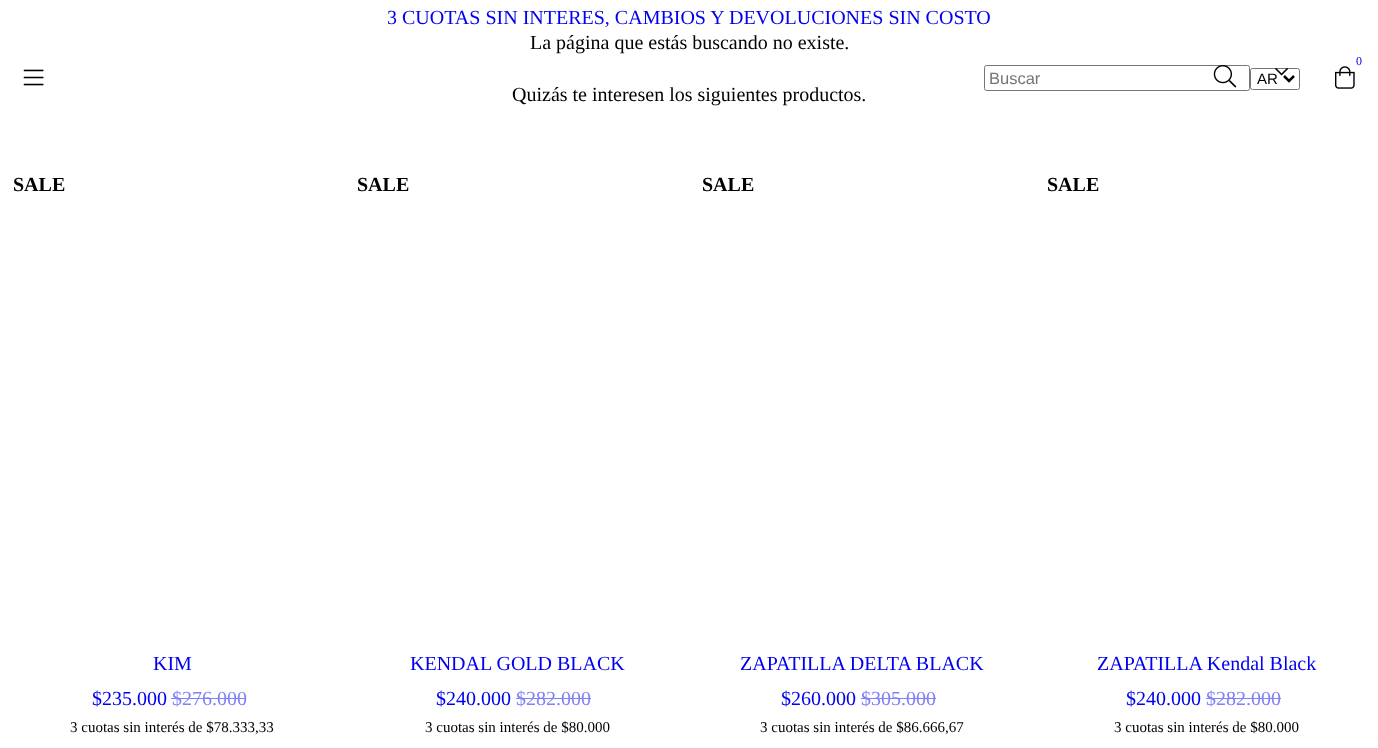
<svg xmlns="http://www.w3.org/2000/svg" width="1378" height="748">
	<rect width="100%" height="100%" fill="#FFFFFF" />
	<text x="387" y="24" font-family="Liberation Serif" font-size="20" fill="#0000EE">3 CUOTAS SIN INTERES, CAMBIOS Y DEVOLUCIONES SIN COSTO</text>
	<image x="23" y="69" width="21" height="17" href="assets/img1.png" />
	<text x="1356" y="65" font-family="Liberation Serif" font-size="12" fill="#0000EE">0</text>
	<image x="1335" y="66" width="20" height="23" href="assets/img2.png" />
	<rect x="984.5" y="65.5" width="265" height="25" rx="2" fill="none" stroke="#767676" />
	<text x="989" y="84" font-family="Liberation Sans" font-size="16.5" fill="#757575">Buscar</text>
	<image x="1213" y="65" width="24" height="23" href="assets/img3.png" />
	<rect x="1250.5" y="68.5" width="49" height="21" rx="2" fill="none" stroke="#767676" />
	<path d="M1284 76L1289 81L1294 76" fill="none" stroke="#000000" stroke-width="2.5" />
	<text x="1257" y="84" font-family="Liberation Sans" font-size="15" fill="#000000">AR</text>
	<image x="1275" y="68" width="13" height="8" href="assets/img4.png" />
	<g font-family="Liberation Serif" font-size="20" fill="#000000">
		<text x="530" y="49">La página que estás buscando no existe.</text>
		<text x="512" y="101">Quizás te interesen los siguientes productos.</text>
	</g>
	<text x="13" y="191" font-family="Liberation Serif" font-size="20" font-weight="700" fill="#000000">SALE</text>
	<g font-family="Liberation Serif" font-size="20" fill="#0000EE">
		<text x="153" y="670">KIM</text>
		<text x="92" y="705">$235.000</text>
	</g>
	<text x="172" y="705" font-family="Liberation Serif" font-size="20" fill="#8080F7">$276.000</text>
	<rect x="171" y="698" width="75" height="1" fill="#8080F7" />
	<text x="70" y="732" font-family="Liberation Serif" font-size="15" fill="#000000">3 cuotas sin interés de $78.333,33</text>
	<text x="357" y="191" font-family="Liberation Serif" font-size="20" font-weight="700" fill="#000000">SALE</text>
	<g font-family="Liberation Serif" font-size="20" fill="#0000EE">
		<text x="410" y="670">KENDAL GOLD BLACK</text>
		<text x="436" y="705">$240.000</text>
	</g>
	<text x="516" y="705" font-family="Liberation Serif" font-size="20" fill="#8080F7">$282.000</text>
	<rect x="516" y="698" width="75" height="1" fill="#8080F7" />
	<text x="425" y="732" font-family="Liberation Serif" font-size="15" fill="#000000">3 cuotas sin interés de $80.000</text>
	<text x="702" y="191" font-family="Liberation Serif" font-size="20" font-weight="700" fill="#000000">SALE</text>
	<g font-family="Liberation Serif" font-size="20" fill="#0000EE">
		<text x="740" y="670">ZAPATILLA DELTA BLACK</text>
		<text x="781" y="705">$260.000</text>
	</g>
	<text x="861" y="705" font-family="Liberation Serif" font-size="20" fill="#8080F7">$305.000</text>
	<rect x="861" y="698" width="75" height="1" fill="#8080F7" />
	<text x="760" y="732" font-family="Liberation Serif" font-size="15" fill="#000000">3 cuotas sin interés de $86.666,67</text>
	<text x="1047" y="191" font-family="Liberation Serif" font-size="20" font-weight="700" fill="#000000">SALE</text>
	<g font-family="Liberation Serif" font-size="20" fill="#0000EE">
		<text x="1097" y="670">ZAPATILLA Kendal Black</text>
		<text x="1126" y="705">$240.000</text>
	</g>
	<text x="1206" y="705" font-family="Liberation Serif" font-size="20" fill="#8080F7">$282.000</text>
	<rect x="1206" y="698" width="75" height="1" fill="#8080F7" />
	<text x="1114" y="732" font-family="Liberation Serif" font-size="15" fill="#000000">3 cuotas sin interés de $80.000</text>
</svg>
